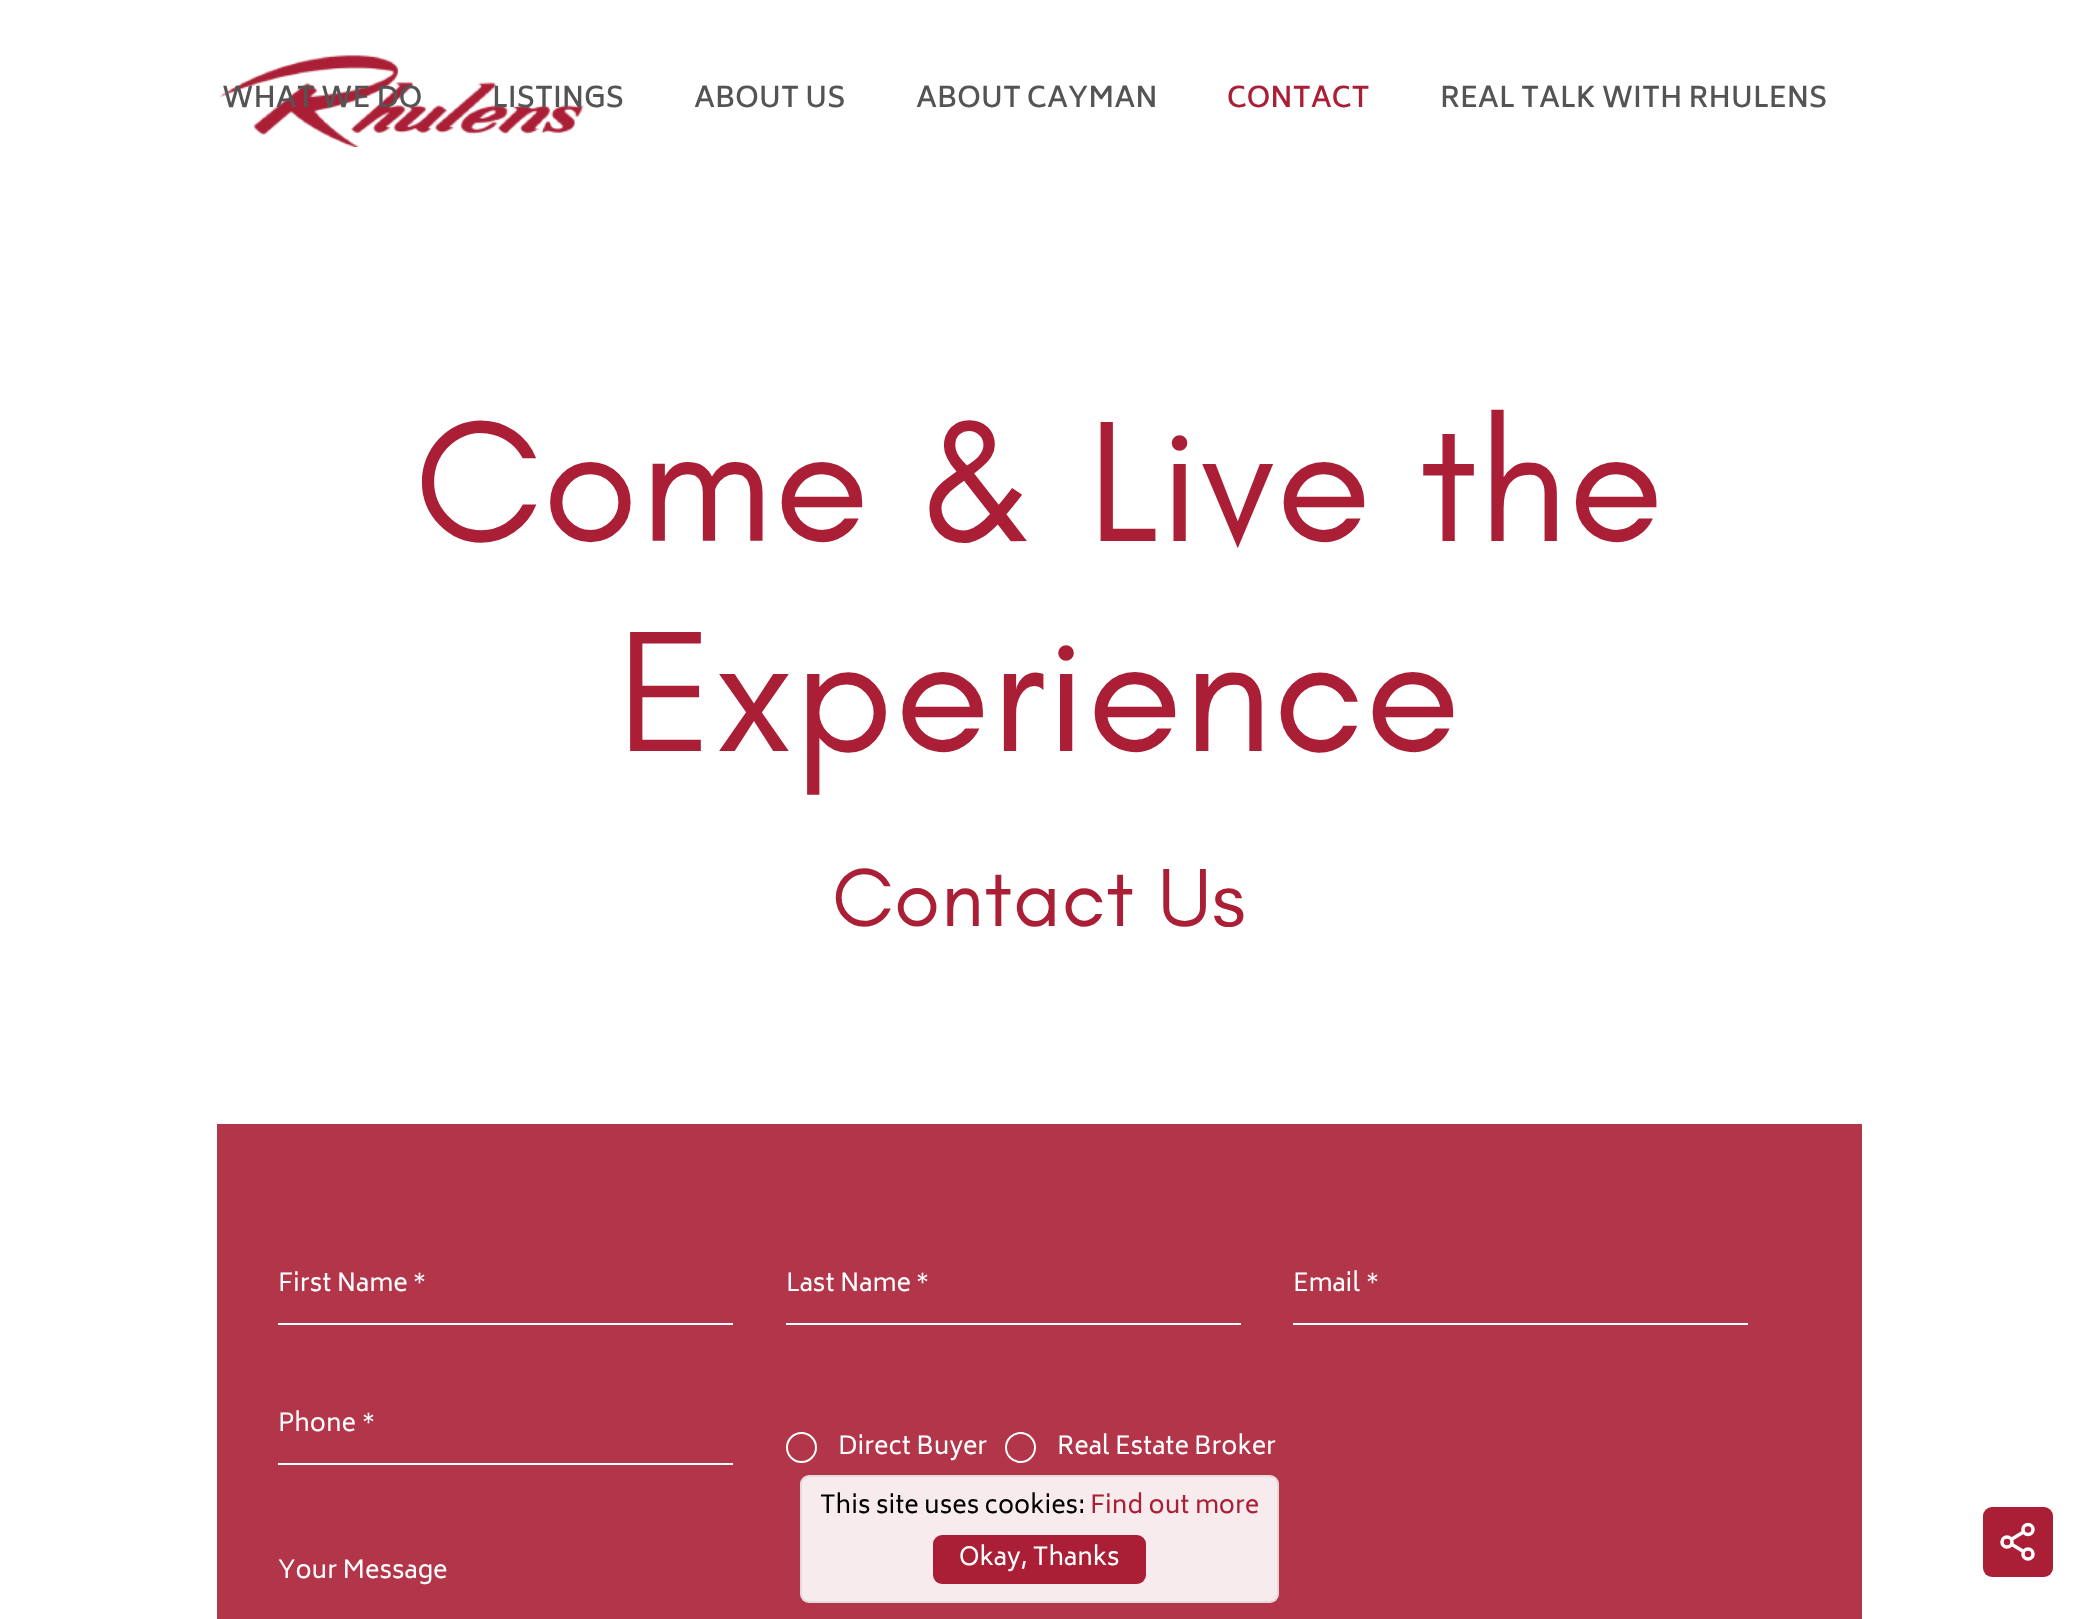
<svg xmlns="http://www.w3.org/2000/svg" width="2079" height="1619">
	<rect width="100%" height="100%" fill="#FFFFFF" />
	<image x="219" y="55" width="365" height="92" href="assets/img1.png" />
	<g font-family="Biryani" font-size="28" font-weight="600" fill="#545454">
		<text x="222" y="107">WHAT WE DO</text>
		<text x="492" y="107">LISTINGS</text>
		<text x="694" y="107">ABOUT US</text>
		<text x="916" y="107">ABOUT CAYMAN</text>
	</g>
	<text x="1227" y="107" font-family="Biryani" font-size="28" font-weight="600" fill="#AA1F36">CONTACT</text>
	<text x="1440" y="107" font-family="Biryani" font-size="28" font-weight="600" fill="#545454">REAL TALK WITH RHULENS</text>
	<g font-family="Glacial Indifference" font-size="175" letter-spacing="0.8" fill="#AA1F36">
		<text x="414" y="541">Come &amp; Live the</text>
		<text x="617" y="751">Experience</text>
	</g>
	<text x="832" y="926" font-family="Glacial Indifference" font-size="84" letter-spacing="0.8" fill="#AA1F36">Contact Us</text>
	<rect x="217" y="1124" width="1645" height="495" fill="#B3354A" />
	<text x="278" y="1291" font-family="Biryani" font-size="24.5" fill="#FFFFFF">First Name</text>
	<text x="413" y="1291" font-family="Biryani" font-size="21" fill="#FFFFFF">*</text>
	<rect x="278" y="1323" width="455" height="2" fill="#FFFFFF" />
	<text x="786" y="1291" font-family="Biryani" font-size="24.5" fill="#FFFFFF">Last Name</text>
	<text x="916" y="1291" font-family="Biryani" font-size="21" fill="#FFFFFF">*</text>
	<rect x="786" y="1323" width="455" height="2" fill="#FFFFFF" />
	<text x="1293" y="1291" font-family="Biryani" font-size="24.5" fill="#FFFFFF">Email</text>
	<text x="1366" y="1291" font-family="Biryani" font-size="21" fill="#FFFFFF">*</text>
	<rect x="1293" y="1323" width="455" height="2" fill="#FFFFFF" />
	<text x="278" y="1431" font-family="Biryani" font-size="24.5" fill="#FFFFFF">Phone</text>
	<text x="362" y="1431" font-family="Biryani" font-size="21" fill="#FFFFFF">*</text>
	<rect x="278" y="1463" width="455" height="2" fill="#FFFFFF" />
	<circle cx="801.5" cy="1447.5" r="14.5" fill="none" stroke="#FFFFFF" stroke-width="2" />
	<text x="838" y="1454" font-family="Biryani" font-size="24.5" fill="#FFFFFF">Direct Buyer</text>
	<circle cx="1020.5" cy="1447.5" r="14.5" fill="none" stroke="#FFFFFF" stroke-width="2" />
	<g font-family="Biryani" font-size="24.5" fill="#FFFFFF">
		<text x="1057" y="1454">Real Estate Broker</text>
		<text x="278" y="1578">Your Message</text>
	</g>
	<rect x="800" y="1475" width="479" height="128" rx="9" fill="#F7EBED" />
	<rect x="801" y="1476" width="477" height="126" rx="8" fill="none" stroke="#464749" stroke-opacity="0.1" stroke-width="2" />
	<text x="820" y="1513" font-family="Biryani" font-size="24.5" fill="#000000">This site uses cookies:</text>
	<text x="1090" y="1513" font-family="Biryani" font-size="24.5" fill="#AA1F36">Find out more</text>
	<rect x="933" y="1535" width="213" height="49" rx="9" fill="#AA1F36" />
	<text x="959" y="1565" font-family="Biryani" font-size="24.5" fill="#FFFFFF">Okay, Thanks</text>
	<rect x="1983" y="1507" width="70" height="70" rx="9" fill="#AA1F36" />
	<circle cx="2028" cy="1529.5" r="5" fill="none" stroke="#FFFFFF" stroke-width="3.5" />
	<circle cx="2007" cy="1542" r="5" fill="none" stroke="#FFFFFF" stroke-width="3.5" />
	<circle cx="2028" cy="1554" r="5" fill="none" stroke="#FFFFFF" stroke-width="3.5" />
	<path d="M2012 1544.5L2023.5 1551.5M2023.5 1532L2012 1539" fill="none" stroke="#FFFFFF" stroke-width="3.5" stroke-linecap="round" stroke-linejoin="round" />
</svg>
